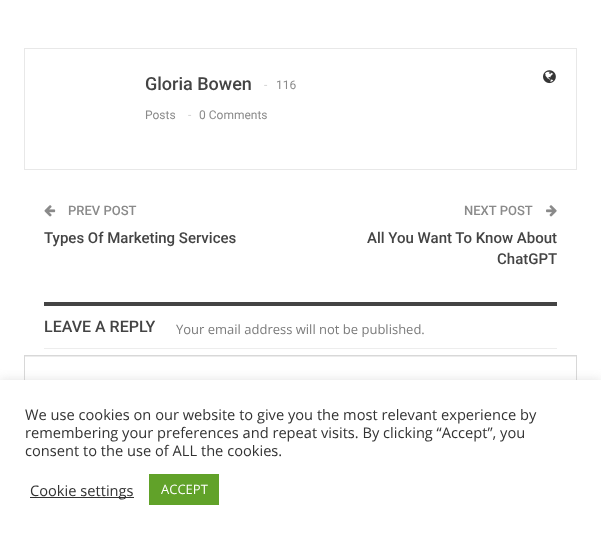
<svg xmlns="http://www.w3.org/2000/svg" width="601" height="535">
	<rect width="100%" height="100%" fill="#FFFFFF" />
	<rect x="24.5" y="48.5" width="552" height="121" fill="none" stroke="#E8E8E8" />
	<text x="145" y="90" font-family="Roboto" font-size="18" font-weight="500" fill="#444444">Gloria Bowen</text>
	<text x="264" y="89" font-family="Roboto" font-size="12" fill="#D0D0D0">-</text>
	<g font-family="Roboto" font-size="12" fill="#8A8A8A">
		<text x="276" y="89">116</text>
		<text x="145" y="119">Posts</text>
	</g>
	<text x="188" y="119" font-family="Roboto" font-size="12" fill="#D0D0D0">-</text>
	<text x="199" y="119" font-family="Roboto" font-size="12" fill="#8A8A8A">0 Comments</text>
	<image x="543" y="70" width="13" height="14" href="assets/img1.png" />
	<image x="44" y="205" width="12" height="12" href="assets/img2.png" />
	<text x="68" y="215" font-family="Roboto" font-size="13" font-weight="500" fill="#8A8A8A">PREV POST</text>
	<text x="44" y="243" font-family="Roboto" font-size="15" font-weight="500" fill="#444444">Types Of Marketing Services</text>
	<text x="464" y="215" font-family="Roboto" font-size="13" font-weight="500" fill="#8A8A8A">NEXT POST</text>
	<image x="546" y="205" width="11" height="12" href="assets/img3.png" />
	<g font-family="Roboto" font-size="15" font-weight="500" fill="#444444">
		<text x="367" y="243">All You Want To Know About</text>
		<text x="497" y="264">ChatGPT</text>
	</g>
	<rect x="44" y="302" width="513" height="4" fill="#444444" />
	<text x="44" y="332" font-family="Roboto" font-size="16" font-weight="500" fill="#444444">LEAVE A REPLY</text>
	<rect x="44" y="348" width="513" height="1" fill="#EDEDED" />
	<text x="176" y="334" font-family="Open Sans" font-size="13" fill="#7B7B7B">Your email address will not be published.</text>
	<rect x="25" y="356" width="551" height="1" fill="#ECECEC" />
	<rect x="24.5" y="355.5" width="552" height="159" fill="none" stroke="#D8D8D8" />
	<rect x="0" y="379" width="601" height="155" fill="#ACABAB" fill-opacity="0.3" filter="blur(5px)" />
	<rect x="0" y="380" width="601" height="155" fill="#FFFFFF" />
	<g font-family="Open Sans" font-size="14.65" fill="#333333">
		<text x="25" y="420">We use cookies on our website to give you the most relevant experience by</text>
		<text x="25" y="438">remembering your preferences and repeat visits. By clicking “Accept”, you</text>
		<text x="25" y="456">consent to the use of ALL the cookies.</text>
	</g>
	<rect x="30" y="497" width="104" height="1" fill="#333333" />
	<text x="30" y="496" font-family="Open Sans" font-size="14.65" fill="#333333">Cookie settings</text>
	<rect x="149" y="474" width="70" height="31" fill="#61A229" />
	<text x="161" y="494" font-family="Open Sans" font-size="13" fill="#FFFFFF">ACCEPT</text>
</svg>
